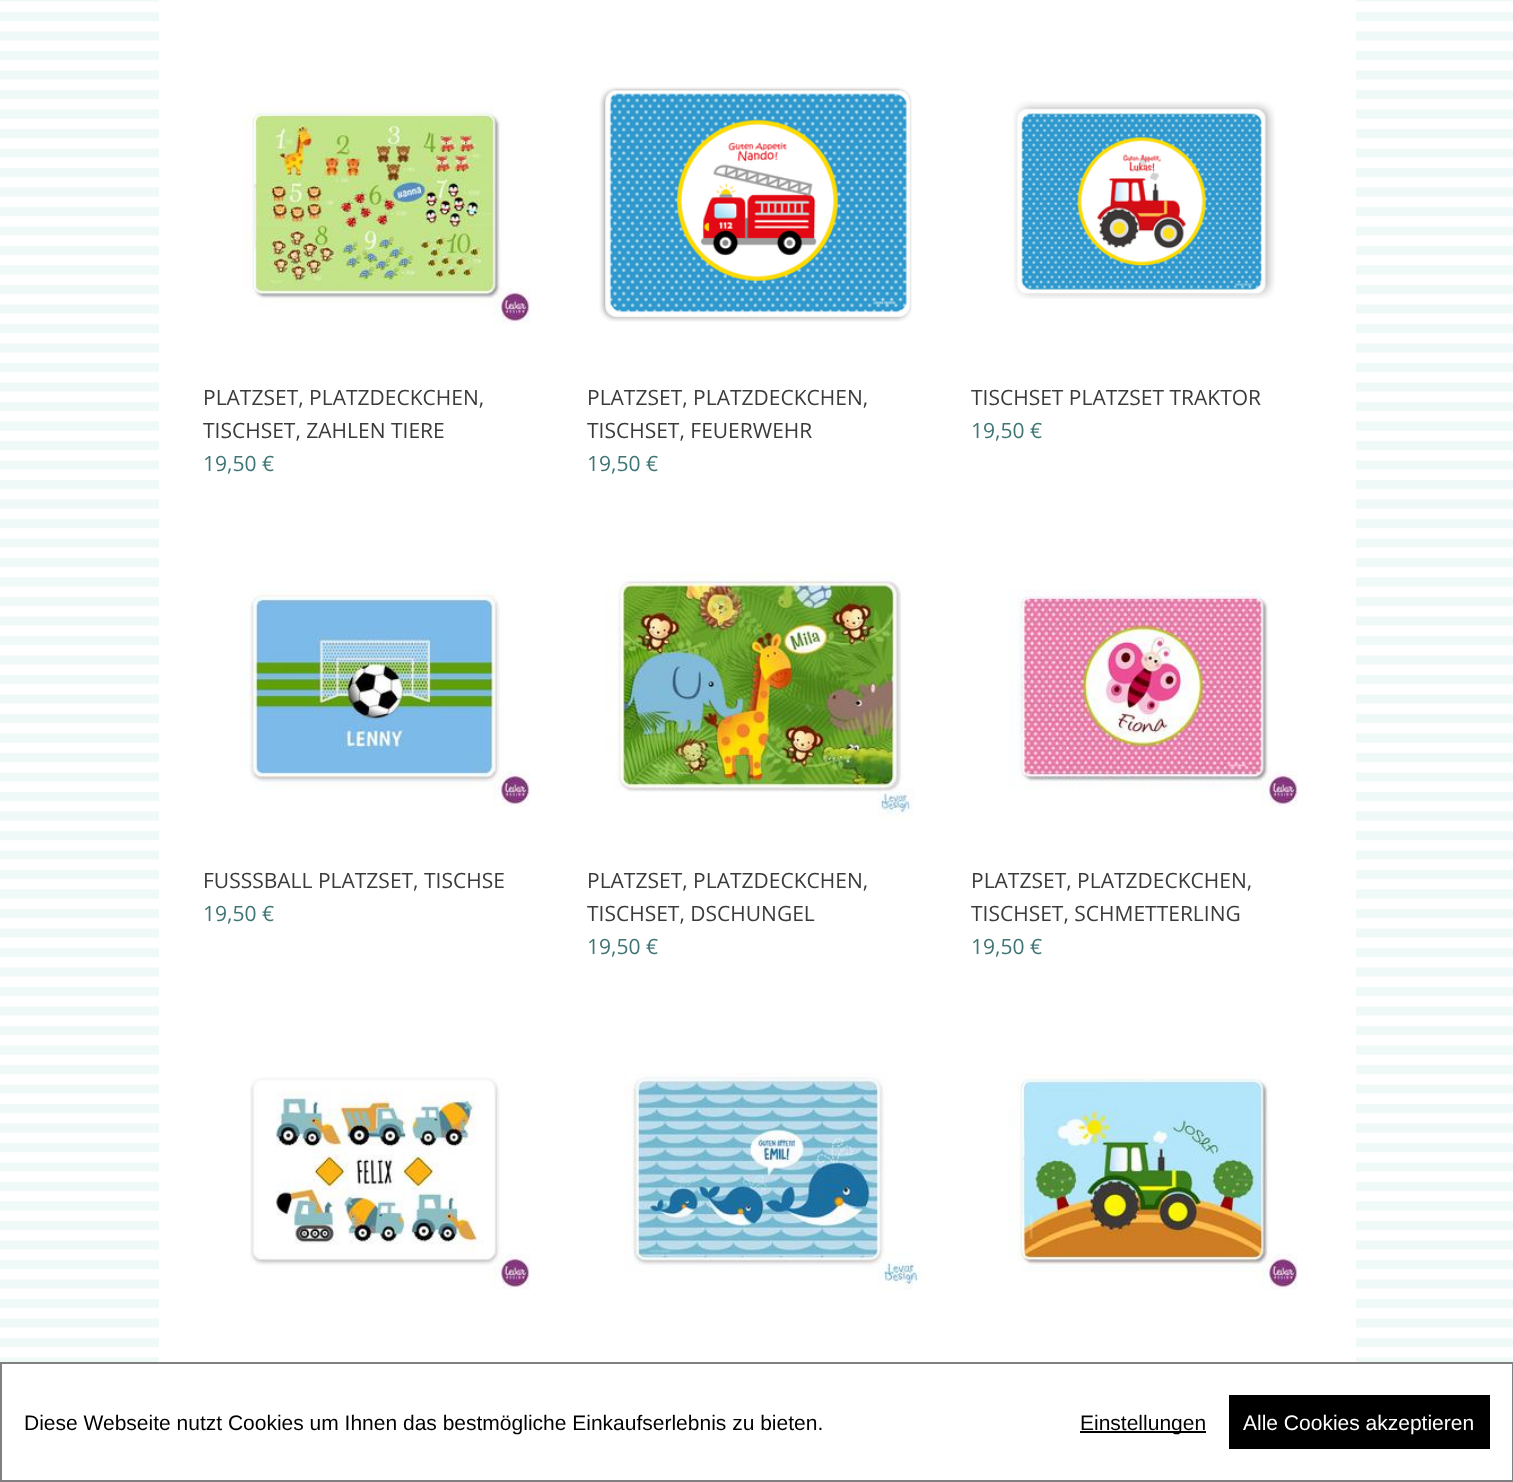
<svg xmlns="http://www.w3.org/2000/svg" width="1513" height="1482">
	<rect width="100%" height="100%" fill="#FFFFFF" />
	<image x="0" y="0" width="1513" height="1362" href="assets/img1.png" />
	<rect x="159" y="0" width="1197" height="1362" fill="#FFFFFF" />
	<image x="243" y="107" width="287" height="217" href="assets/img2.png" />
	<g font-family="Open Sans" font-size="21" fill="#3B3B3B">
		<text x="203" y="405">PLATZSET, PLATZDECKCHEN,</text>
		<text x="203" y="438">TISCHSET, ZAHLEN TIERE</text>
	</g>
	<text x="203" y="471" font-family="Open Sans" font-size="21" fill="#407575">19,50 €</text>
	<image x="599" y="87" width="313" height="235" href="assets/img3.png" />
	<g font-family="Open Sans" font-size="21" fill="#3B3B3B">
		<text x="587" y="405">PLATZSET, PLATZDECKCHEN,</text>
		<text x="587" y="438">TISCHSET, FEUERWEHR</text>
	</g>
	<text x="587" y="471" font-family="Open Sans" font-size="21" fill="#407575">19,50 €</text>
	<image x="1013" y="101" width="262" height="198" href="assets/img4.png" />
	<text x="971" y="405" font-family="Open Sans" font-size="21" fill="#3B3B3B">TISCHSET PLATZSET TRAKTOR</text>
	<text x="971" y="438" font-family="Open Sans" font-size="21" fill="#407575">19,50 €</text>
	<image x="240" y="589" width="290" height="218" href="assets/img5.png" />
	<text x="203" y="888" font-family="Open Sans" font-size="21" fill="#3B3B3B">FUSSSBALL PLATZSET, TISCHSE</text>
	<text x="203" y="921" font-family="Open Sans" font-size="21" fill="#407575">19,50 €</text>
	<image x="606" y="572" width="308" height="247" href="assets/img6.png" />
	<g font-family="Open Sans" font-size="21" fill="#3B3B3B">
		<text x="587" y="888">PLATZSET, PLATZDECKCHEN,</text>
		<text x="587" y="921">TISCHSET, DSCHUNGEL</text>
	</g>
	<text x="587" y="954" font-family="Open Sans" font-size="21" fill="#407575">19,50 €</text>
	<image x="1008" y="589" width="290" height="218" href="assets/img7.png" />
	<g font-family="Open Sans" font-size="21" fill="#3B3B3B">
		<text x="971" y="888">PLATZSET, PLATZDECKCHEN,</text>
		<text x="971" y="921">TISCHSET, SCHMETTERLING</text>
	</g>
	<text x="971" y="954" font-family="Open Sans" font-size="21" fill="#407575">19,50 €</text>
	<image x="250" y="1077" width="280" height="213" href="assets/img8.png" />
	<image x="624" y="1073" width="301" height="217" href="assets/img9.png" />
	<image x="1008" y="1073" width="290" height="217" href="assets/img10.png" />
	<rect x="1" y="1363" width="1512" height="118" fill="none" stroke="#808080" stroke-width="2" />
	<text x="24" y="1430" font-family="Liberation Sans" font-size="21" fill="#000000">Diese Webseite nutzt Cookies um Ihnen das bestmögliche Einkaufserlebnis zu bieten.</text>
	<rect x="1080" y="1431" width="126" height="2" fill="#000000" />
	<text x="1080" y="1430" font-family="Liberation Sans" font-size="21" fill="#000000">Einstellungen</text>
	<rect x="1229" y="1395" width="261" height="54" fill="#000000" />
	<text x="1243" y="1430" font-family="Liberation Sans" font-size="21" fill="#FFFFFF">Alle Cookies akzeptieren</text>
</svg>
